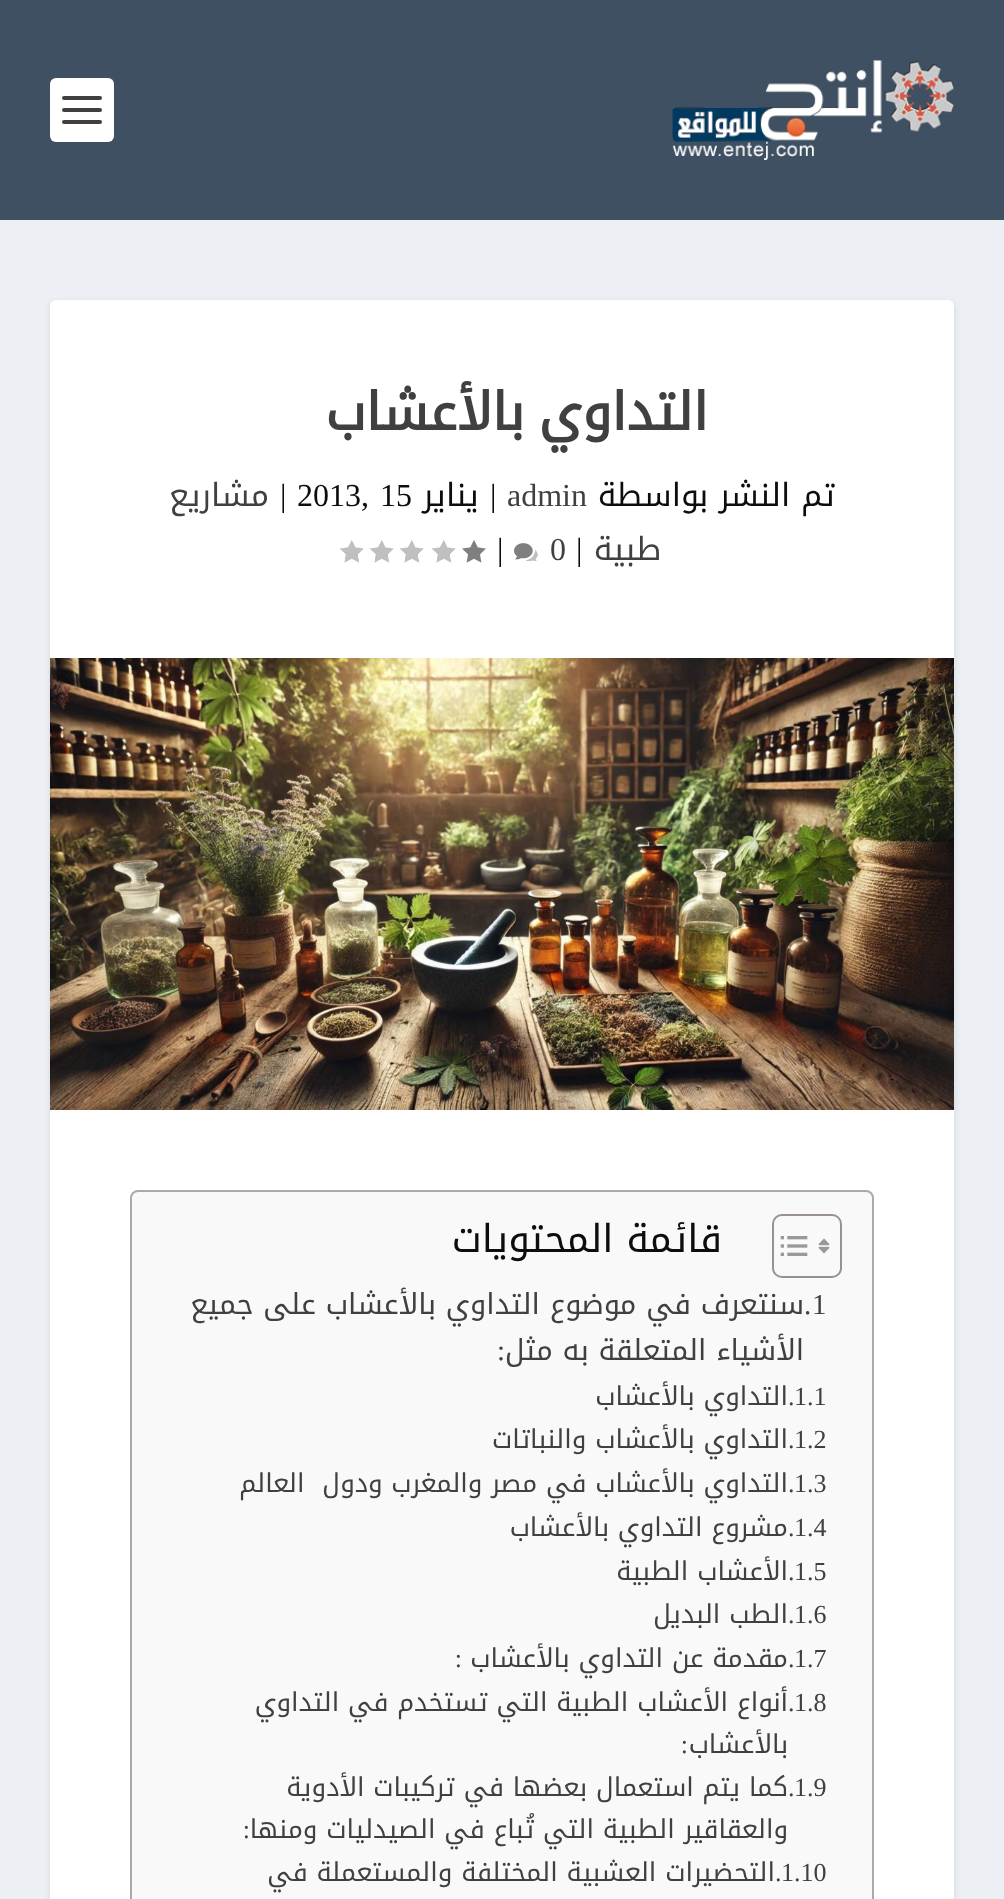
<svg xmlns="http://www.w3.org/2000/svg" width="1004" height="1899">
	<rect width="100%" height="100%" fill="#ECF0F5" />
	<rect x="0" y="0" width="1004" height="220" fill="#3E5062" />
	<image x="672" y="60" width="282" height="100" href="assets/img1.png" />
	<rect x="50" y="78" width="64" height="64" rx="6" fill="#FFFFFF" />
	<rect x="62" y="96" width="40" height="4" rx="2" fill="#404040" />
	<rect x="62" y="108" width="40" height="4" rx="2" fill="#404040" />
	<rect x="62" y="120" width="40" height="4" rx="2" fill="#404040" />
	<rect x="50" y="302" width="904" height="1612" rx="6" fill="#000000" fill-opacity="0.1" filter="blur(3px)" />
	<rect x="50" y="300" width="904" height="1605" rx="6" fill="#FFFFFF" />
	<text x="708" y="430" word-spacing="-3" font-family="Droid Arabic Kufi" font-size="52" font-weight="700" letter-spacing="1" direction="rtl" fill="#404040">التداوي بالأعشاب</text>
	<text x="835" y="506" font-family="Droid Arabic Kufi" font-size="32" direction="rtl" fill="#0D0D0D">تم النشر بواسطة</text>
	<text x="507" y="506" font-family="Liberation Serif" font-size="32" fill="#404040">admin</text>
	<text x="490" y="506" font-family="Liberation Serif" font-size="32" fill="#0D0D0D">|</text>
	<text x="479" y="506" font-family="Droid Arabic Kufi" font-size="32" direction="rtl" fill="#0D0D0D">يناير</text>
	<g font-family="Liberation Serif" font-size="32" fill="#0D0D0D">
		<text x="380" y="506">15</text>
		<text x="297" y="506">2013,</text>
		<text x="280" y="506">|</text>
	</g>
	<g font-family="Droid Arabic Kufi" font-size="32" direction="rtl" fill="#404040">
		<text x="269" y="506">مشاريع</text>
		<text x="661" y="560">طبية</text>
	</g>
	<text x="576" y="560" font-family="Liberation Serif" font-size="32" fill="#0D0D0D">|</text>
	<text x="550" y="560" font-family="Liberation Serif" font-size="32" fill="#404040">0</text>
	<image x="514" y="543" width="24" height="18" href="assets/img2.png" />
	<text x="497" y="560" font-family="Liberation Serif" font-size="32" fill="#0D0D0D">|</text>
	<image x="462" y="540" width="24" height="23" href="assets/img3.png" />
	<image x="432" y="540" width="24" height="23" href="assets/img4.png" />
	<image x="400" y="540" width="24" height="23" href="assets/img4.png" />
	<image x="370" y="540" width="24" height="23" href="assets/img4.png" />
	<image x="340" y="540" width="24" height="23" href="assets/img4.png" />
	<image x="50" y="658" width="904" height="452" href="assets/img5.png" />
	<rect x="131" y="1191" width="742" height="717" rx="7" fill="#F9F9F9" stroke="#AAAAAA" stroke-width="2" />
	<rect x="773" y="1215" width="68" height="62" rx="9" fill="none" stroke="#999191" stroke-width="2" />
	<image x="818" y="1238" width="12" height="16" href="assets/img6.png" />
	<image x="780" y="1236" width="28" height="20" href="assets/img7.png" />
	<text x="722" y="1252" font-family="Droid Arabic Kufi" font-size="38.5" direction="rtl" fill="#0D0D0D">قائمة المحتويات</text>
	<g font-family="Liberation Serif" font-size="28.9" fill="#404040">
		<text x="812" y="1314">1</text>
		<text x="804" y="1314">.</text>
	</g>
	<g font-family="Droid Arabic Kufi" font-size="28.9" direction="rtl" fill="#404040">
		<text x="804" y="1314">سنتعرف في موضوع التداوي بالأعشاب على جميع</text>
		<text x="804" y="1360">الأشياء المتعلقة به مثل</text>
	</g>
	<text x="505" y="1360" font-family="Liberation Serif" font-size="28.9" direction="rtl" fill="#404040">:</text>
	<g font-family="Liberation Serif" font-size="26" fill="#404040">
		<text x="794" y="1405">1.1</text>
		<text x="788" y="1405">.</text>
	</g>
	<text x="788" y="1405" font-family="Droid Arabic Kufi" font-size="26" direction="rtl" fill="#404040">التداوي بالأعشاب</text>
	<g font-family="Liberation Serif" font-size="26" fill="#404040">
		<text x="794" y="1448">1.2</text>
		<text x="788" y="1448">.</text>
	</g>
	<text x="788" y="1448" font-family="Droid Arabic Kufi" font-size="26" direction="rtl" fill="#404040">التداوي بالأعشاب والنباتات</text>
	<g font-family="Liberation Serif" font-size="26" fill="#404040">
		<text x="794" y="1492">1.3</text>
		<text x="788" y="1492">.</text>
	</g>
	<text x="788" y="1492" font-family="Droid Arabic Kufi" font-size="26" direction="rtl" fill="#404040" xml:space="preserve">التداوي بالأعشاب في مصر والمغرب ودول  العالم</text>
	<g font-family="Liberation Serif" font-size="26" fill="#404040">
		<text x="794" y="1536">1.4</text>
		<text x="788" y="1536">.</text>
	</g>
	<text x="788" y="1536" font-family="Droid Arabic Kufi" font-size="26" direction="rtl" fill="#404040">مشروع التداوي بالأعشاب</text>
	<g font-family="Liberation Serif" font-size="26" fill="#404040">
		<text x="794" y="1580">1.5</text>
		<text x="788" y="1580">.</text>
	</g>
	<text x="788" y="1580" font-family="Droid Arabic Kufi" font-size="26" direction="rtl" fill="#404040">الأعشاب الطبية</text>
	<g font-family="Liberation Serif" font-size="26" fill="#404040">
		<text x="794" y="1623">1.6</text>
		<text x="788" y="1623">.</text>
	</g>
	<text x="788" y="1623" font-family="Droid Arabic Kufi" font-size="26" direction="rtl" fill="#404040">الطب البديل</text>
	<g font-family="Liberation Serif" font-size="26" fill="#404040">
		<text x="794" y="1667">1.7</text>
		<text x="788" y="1667">.</text>
	</g>
	<text x="788" y="1667" font-family="Droid Arabic Kufi" font-size="26" direction="rtl" fill="#404040">مقدمة عن التداوي بالأعشاب</text>
	<text x="462" y="1667" font-family="Liberation Serif" font-size="26" direction="rtl" fill="#404040">:</text>
	<g font-family="Liberation Serif" font-size="26" fill="#404040">
		<text x="794" y="1711">1.8</text>
		<text x="788" y="1711">.</text>
	</g>
	<g font-family="Droid Arabic Kufi" font-size="26" direction="rtl" fill="#404040">
		<text x="788" y="1711">أنواع الأعشاب الطبية التي تستخدم في التداوي</text>
		<text x="788" y="1753">بالأعشاب</text>
	</g>
	<text x="688" y="1753" font-family="Liberation Serif" font-size="26" direction="rtl" fill="#404040">:</text>
	<g font-family="Liberation Serif" font-size="26" fill="#404040">
		<text x="794" y="1796">1.9</text>
		<text x="788" y="1796">.</text>
	</g>
	<g font-family="Droid Arabic Kufi" font-size="26" direction="rtl" fill="#404040">
		<text x="788" y="1796">كما يتم استعمال بعضها في تركيبات الأدوية</text>
		<text x="788" y="1838">والعقاقير الطبية التي تُباع في الصيدليات ومنها</text>
	</g>
	<text x="250" y="1838" font-family="Liberation Serif" font-size="26" direction="rtl" fill="#404040">:</text>
	<g font-family="Liberation Serif" font-size="26" fill="#404040">
		<text x="781" y="1881">1.10</text>
		<text x="775" y="1881">.</text>
	</g>
	<text x="775" y="1881" font-family="Droid Arabic Kufi" font-size="26" direction="rtl" fill="#404040">التحضيرات العشبية المختلفة والمستعملة في</text>
</svg>
